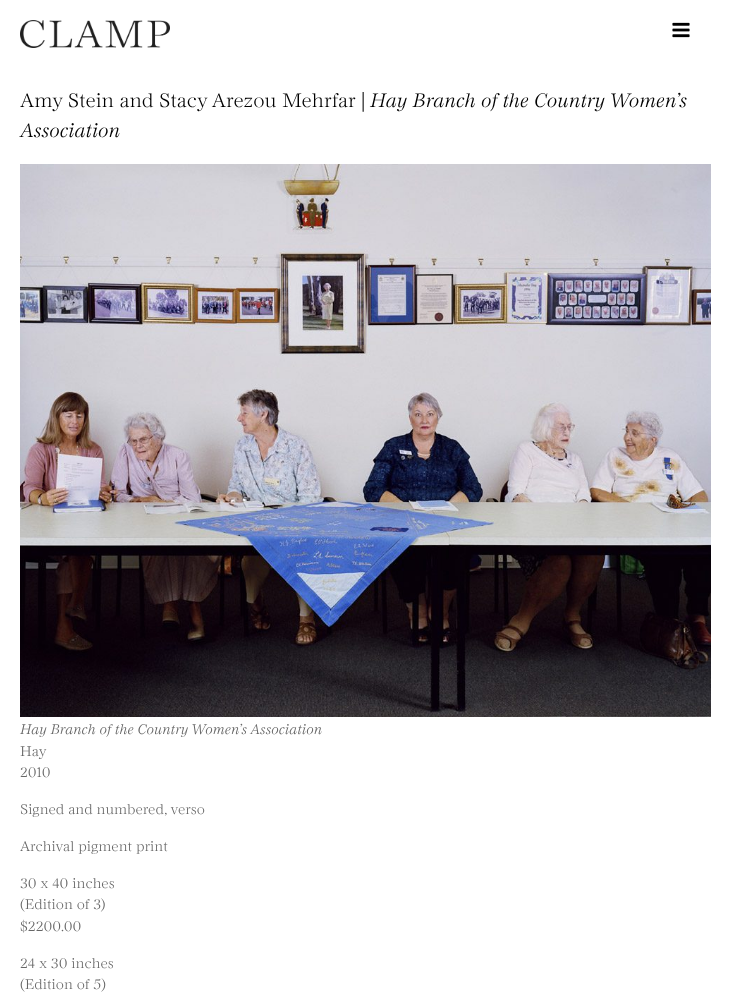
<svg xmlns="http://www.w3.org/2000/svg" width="731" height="1006">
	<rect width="100%" height="100%" fill="#FFFFFF" />
	<image x="20" y="20" width="150" height="28" href="assets/img1.png" />
	<image x="672" y="22" width="18" height="16" href="assets/img2.png" />
	<text x="20" y="107" font-family="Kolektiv" font-size="21.5" font-weight="300" fill="#000000">Amy Stein and Stacy Arezou Mehrfar</text>
	<text x="361" y="107" font-family="Liberation Serif" font-size="21.5" fill="#000000">|</text>
	<g font-family="Kolektiv" font-size="21.5" font-weight="300" font-style="italic" fill="#000000">
		<text x="370" y="107">Hay Branch of the Country Women’s</text>
		<text x="20" y="137">Association</text>
	</g>
	<image x="20" y="164" width="691" height="553" href="assets/img3.png" />
	<text x="20" y="734" font-family="Kolektiv" font-size="15.4" font-weight="300" font-style="italic" fill="#666666">Hay Branch of the Country Women’s Association</text>
	<g font-family="Kolektiv" font-size="15.4" font-weight="300" fill="#666666">
		<text x="20" y="756">Hay</text>
		<text x="20" y="777">2010</text>
		<text x="20" y="814">Signed and numbered, verso</text>
		<text x="20" y="851">Archival pigment print</text>
		<text x="20" y="888">30 x 40 inches</text>
		<text x="20" y="909">(Edition of 3)</text>
		<text x="20" y="931">$2200.00</text>
		<text x="20" y="968">24 x 30 inches</text>
		<text x="20" y="989">(Edition of 5)</text>
	</g>
</svg>
